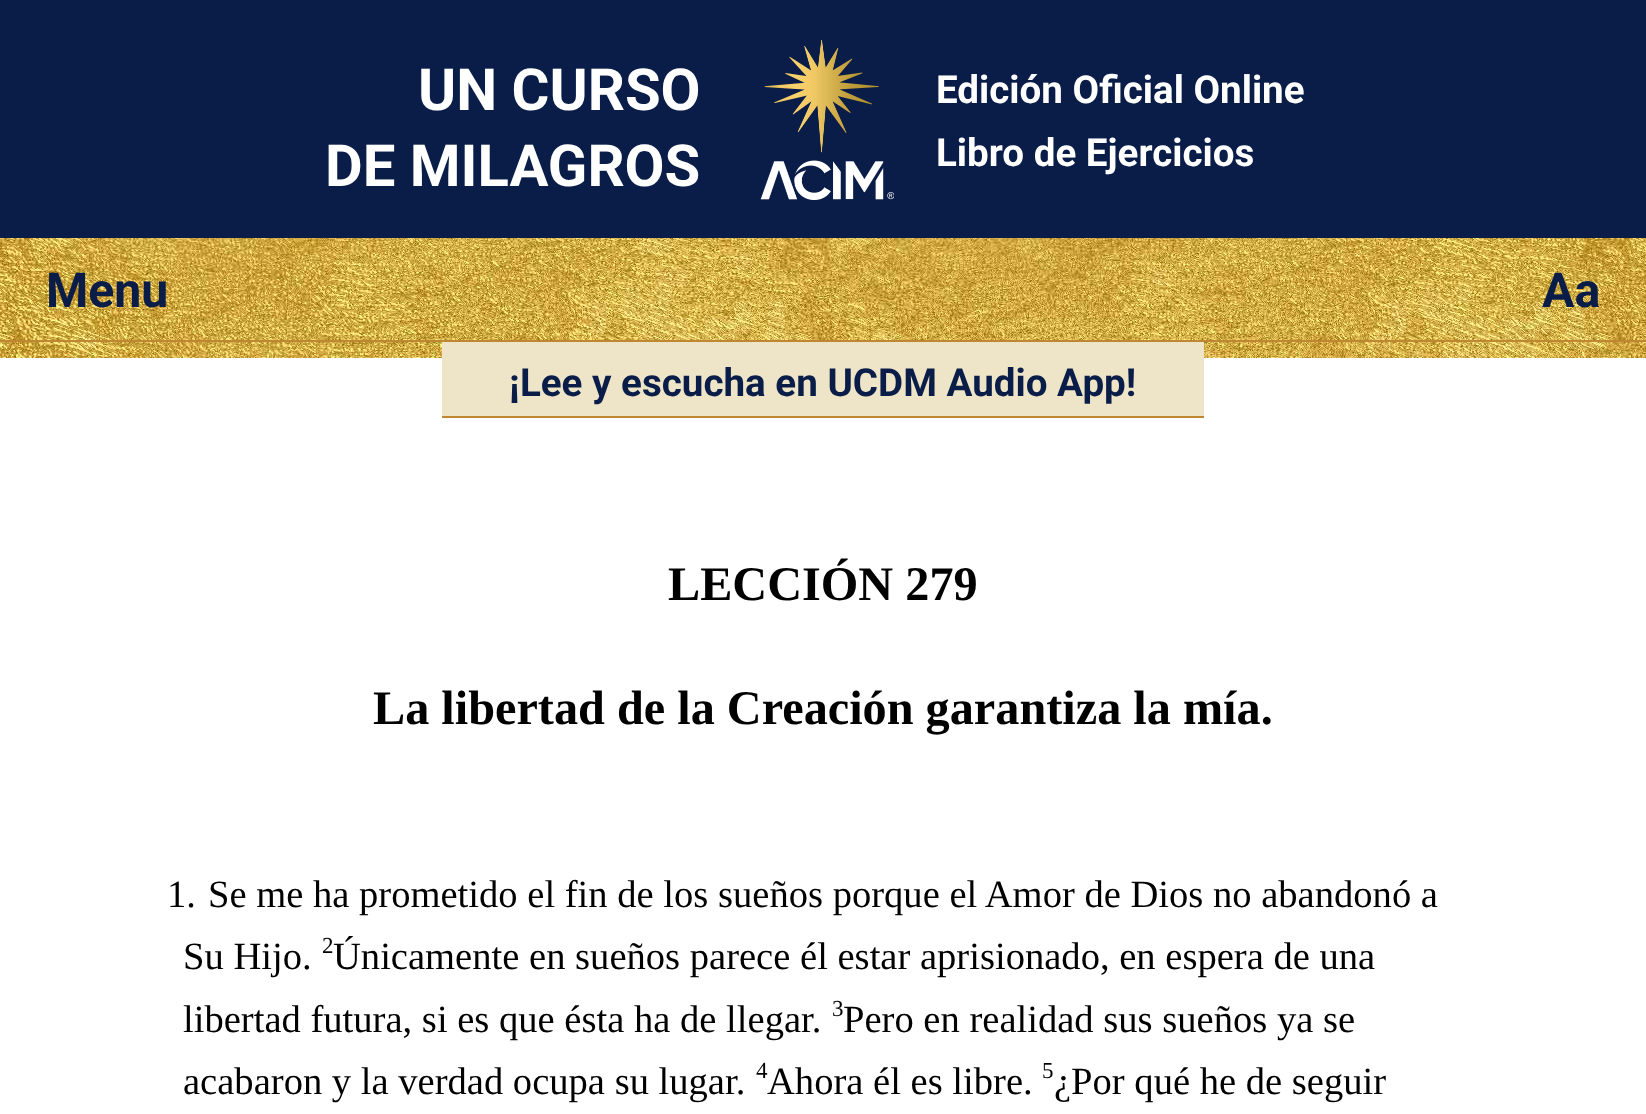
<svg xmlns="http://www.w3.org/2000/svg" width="1646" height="1114">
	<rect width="100%" height="100%" fill="#FFFFFF" />
	<rect x="0" y="0" width="1646" height="238" fill="#091D48" />
	<g font-family="Roboto" font-size="58" font-weight="700" fill="#FFFFFF">
		<text x="418" y="110">UN CURSO</text>
		<text x="325" y="186">DE MILAGROS</text>
	</g>
	<image x="760" y="40" width="134" height="160" href="assets/img1.png" />
	<g font-family="Roboto" font-size="38.6" font-weight="700" fill="#FFFFFF">
		<text x="936" y="103">Edición Oficial Online</text>
		<text x="936" y="166">Libro de Ejercicios</text>
	</g>
	<image x="0" y="238" width="1646" height="120" href="assets/img2.png" />
	<rect x="0" y="340" width="1646" height="2" fill="#BF8731" />
	<g font-family="Roboto" font-size="48.25" font-weight="700" fill="#091D48">
		<text x="46" y="307">Menu</text>
		<text x="1542" y="307">Aa</text>
	</g>
	<rect x="442" y="342" width="762" height="74" fill="#EEE4C8" />
	<rect x="442" y="416" width="762" height="2" fill="#BF8731" />
	<text x="509" y="396" font-family="Roboto" font-size="38.6" font-weight="700" fill="#091D48">¡Lee y escucha en UCDM Audio App!</text>
	<g font-family="Liberation Serif" font-size="48.25" font-weight="700" fill="#000000">
		<text x="668" y="600">LECCIÓN 279</text>
		<text x="373" y="724">La libertad de la Creación garantiza la mía.</text>
	</g>
	<g font-family="Liberation Serif" font-size="38.6" fill="#000000">
		<text x="167" y="907">1.</text>
		<text x="208" y="907">Se me ha prometido el fin de los sueños porque el Amor de Dios no abandonó a</text>
		<text x="183" y="969">Su Hijo.</text>
	</g>
	<text x="322" y="953" font-family="Liberation Serif" font-size="23" fill="#000000">2</text>
	<g font-family="Liberation Serif" font-size="38.6" fill="#000000">
		<text x="333" y="969">Únicamente en sueños parece él estar aprisionado, en espera de una</text>
		<text x="183" y="1032">libertad futura, si es que ésta ha de llegar.</text>
	</g>
	<text x="832" y="1016" font-family="Liberation Serif" font-size="23" fill="#000000">3</text>
	<g font-family="Liberation Serif" font-size="38.6" fill="#000000">
		<text x="843" y="1032">Pero en realidad sus sueños ya se</text>
		<text x="183" y="1094">acabaron y la verdad ocupa su lugar.</text>
	</g>
	<text x="756" y="1078" font-family="Liberation Serif" font-size="23" fill="#000000">4</text>
	<text x="767" y="1094" font-family="Liberation Serif" font-size="38.6" fill="#000000">Ahora él es libre.</text>
	<text x="1042" y="1078" font-family="Liberation Serif" font-size="23" fill="#000000">5</text>
	<text x="1054" y="1094" font-family="Liberation Serif" font-size="38.6" fill="#000000">¿Por qué he de seguir</text>
</svg>
